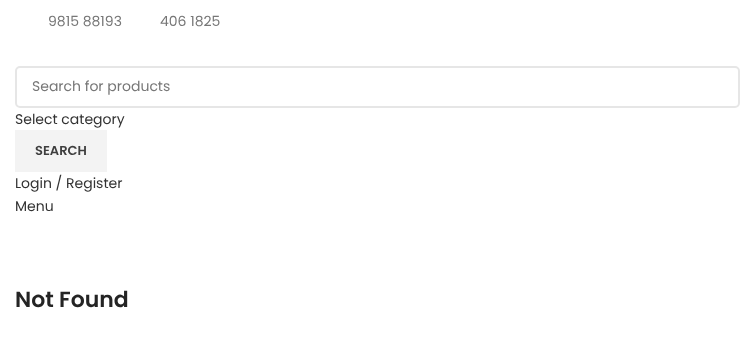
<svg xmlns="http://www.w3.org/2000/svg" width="755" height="351">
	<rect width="100%" height="100%" fill="#FFFFFF" />
	<g font-family="Poppins" font-size="14" fill="#777777">
		<text x="48" y="26">9815 88193</text>
		<text x="160" y="26">406 1825</text>
	</g>
	<rect x="16" y="67" width="723" height="40" rx="4" fill="none" stroke="#E6E6E6" stroke-width="2" />
	<text x="32" y="91" font-family="Poppins" font-size="14" fill="#777777">Search for products</text>
	<text x="15" y="124" font-family="Poppins" font-size="14" fill="#333333">Select category</text>
	<rect x="15" y="130" width="92" height="42" fill="#F3F3F3" />
	<text x="35" y="155" font-family="Poppins" font-size="13" font-weight="600" fill="#3E3E3E">SEARCH</text>
	<g font-family="Poppins" font-size="14" fill="#333333">
		<text x="15" y="188">Login / Register</text>
		<text x="15" y="211">Menu</text>
	</g>
	<text x="15" y="307" font-family="Poppins" font-size="22" font-weight="600" fill="#242424">Not Found</text>
</svg>
